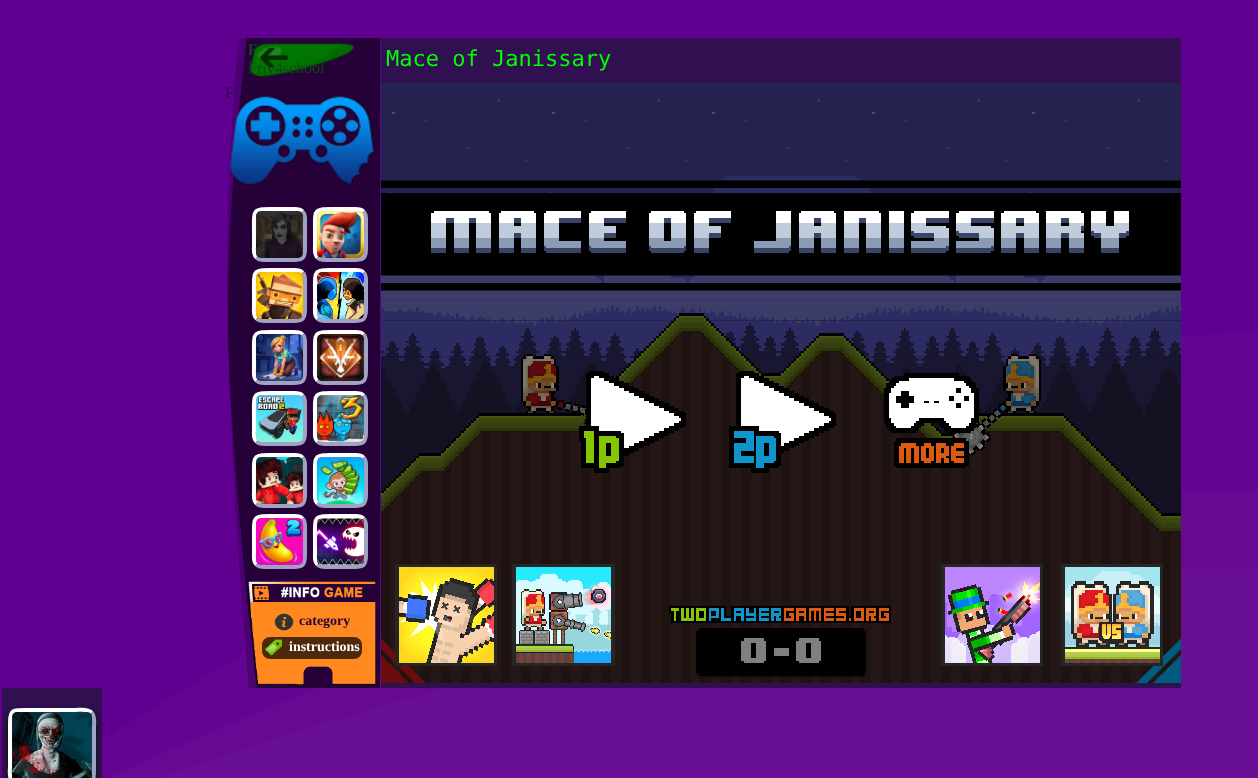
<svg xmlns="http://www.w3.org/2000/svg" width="1258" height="778">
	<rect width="100%" height="100%" fill="#FFFFFF" />
	<image x="0" y="0" width="1258" height="778" href="assets/img1.png" />
	<image x="227" y="38" width="153" height="650" href="assets/img2.png" />
	<image x="249" y="42" width="106" height="36" href="assets/img3.png" />
	<text x="248" y="55" font-family="Liberation Serif" font-size="16" fill="#08610B">F</text>
	<text x="248" y="73" font-family="Liberation Serif" font-size="16" fill="#0E4715">Friv4school</text>
	<image x="230" y="96" width="144" height="90" href="assets/img4.png" />
	<text x="225" y="98" font-family="Liberation Serif" font-size="16" fill="#30054E">F</text>
	<path d="M302.5 211.5C306 214.5 305 219 305 223V234.5C305 262.5 307.5 260 279.5 260H268C264 260 259.5 261 256.5 257.5" fill="none" stroke="#A1A1C4" stroke-width="4" />
	<path d="M256.5 257.5C253 254.5 254 250 254 246V234.5C254 206.5 251.5 209 279.5 209H291C295 209 299.5 208 302.5 211.5" fill="none" stroke="#FFFFFF" stroke-width="4" />
	<image x="256" y="211" width="47" height="47" href="assets/img5.png" />
	<path d="M363.5 211.5C367 214.5 366 219 366 223V234.5C366 262.5 368.5 260 340.5 260H329C325 260 320.5 261 317.5 257.5" fill="none" stroke="#A1A1C4" stroke-width="4" />
	<path d="M317.5 257.5C314 254.5 315 250 315 246V234.5C315 206.5 312.5 209 340.5 209H352C356 209 360.5 208 363.5 211.5" fill="none" stroke="#FFFFFF" stroke-width="4" />
	<image x="317" y="211" width="47" height="47" href="assets/img6.png" />
	<path d="M302.5 272.5C306 275.5 305 280 305 284V295.5C305 323.5 307.5 321 279.5 321H268C264 321 259.5 322 256.5 318.5" fill="none" stroke="#A1A1C4" stroke-width="4" />
	<path d="M256.5 318.5C253 315.5 254 311 254 307V295.5C254 267.5 251.5 270 279.5 270H291C295 270 299.5 269 302.5 272.5" fill="none" stroke="#FFFFFF" stroke-width="4" />
	<image x="256" y="272" width="47" height="47" href="assets/img7.png" />
	<path d="M363.5 272.5C367 275.5 366 280 366 284V295.5C366 323.5 368.5 321 340.5 321H329C325 321 320.5 322 317.5 318.5" fill="none" stroke="#A1A1C4" stroke-width="4" />
	<path d="M317.5 318.5C314 315.5 315 311 315 307V295.5C315 267.5 312.5 270 340.5 270H352C356 270 360.5 269 363.5 272.5" fill="none" stroke="#FFFFFF" stroke-width="4" />
	<image x="317" y="272" width="47" height="47" href="assets/img8.png" />
	<path d="M302.5 334.5C306 337.5 305 342 305 346V357.5C305 385.5 307.5 383 279.5 383H268C264 383 259.5 384 256.5 380.5" fill="none" stroke="#A1A1C4" stroke-width="4" />
	<path d="M256.5 380.5C253 377.5 254 373 254 369V357.5C254 329.5 251.5 332 279.5 332H291C295 332 299.5 331 302.5 334.5" fill="none" stroke="#FFFFFF" stroke-width="4" />
	<image x="256" y="334" width="47" height="47" href="assets/img9.png" />
	<path d="M363.5 334.5C367 337.5 366 342 366 346V357.5C366 385.5 368.5 383 340.5 383H329C325 383 320.5 384 317.5 380.5" fill="none" stroke="#A1A1C4" stroke-width="4" />
	<path d="M317.5 380.5C314 377.5 315 373 315 369V357.5C315 329.5 312.5 332 340.5 332H352C356 332 360.5 331 363.5 334.5" fill="none" stroke="#FFFFFF" stroke-width="4" />
	<image x="317" y="334" width="47" height="47" href="assets/img10.png" />
	<path d="M302.5 395.5C306 398.5 305 403 305 407V418.5C305 446.5 307.5 444 279.5 444H268C264 444 259.5 445 256.5 441.5" fill="none" stroke="#A1A1C4" stroke-width="4" />
	<path d="M256.5 441.5C253 438.5 254 434 254 430V418.5C254 390.5 251.5 393 279.5 393H291C295 393 299.5 392 302.5 395.5" fill="none" stroke="#FFFFFF" stroke-width="4" />
	<image x="256" y="395" width="47" height="47" href="assets/img11.png" />
	<path d="M363.5 395.5C367 398.5 366 403 366 407V418.5C366 446.5 368.5 444 340.5 444H329C325 444 320.5 445 317.5 441.5" fill="none" stroke="#A1A1C4" stroke-width="4" />
	<path d="M317.5 441.5C314 438.5 315 434 315 430V418.5C315 390.5 312.5 393 340.5 393H352C356 393 360.5 392 363.5 395.5" fill="none" stroke="#FFFFFF" stroke-width="4" />
	<image x="317" y="395" width="47" height="47" href="assets/img12.png" />
	<path d="M302.5 457.5C306 460.5 305 465 305 469V480.5C305 508.5 307.5 506 279.5 506H268C264 506 259.5 507 256.5 503.5" fill="none" stroke="#A1A1C4" stroke-width="4" />
	<path d="M256.5 503.5C253 500.5 254 496 254 492V480.5C254 452.5 251.5 455 279.5 455H291C295 455 299.5 454 302.5 457.5" fill="none" stroke="#FFFFFF" stroke-width="4" />
	<image x="256" y="457" width="47" height="47" href="assets/img13.png" />
	<path d="M363.5 457.5C367 460.5 366 465 366 469V480.5C366 508.5 368.5 506 340.5 506H329C325 506 320.5 507 317.5 503.5" fill="none" stroke="#A1A1C4" stroke-width="4" />
	<path d="M317.5 503.5C314 500.5 315 496 315 492V480.5C315 452.5 312.5 455 340.5 455H352C356 455 360.5 454 363.5 457.5" fill="none" stroke="#FFFFFF" stroke-width="4" />
	<image x="317" y="457" width="47" height="47" href="assets/img14.png" />
	<path d="M302.5 518.5C306 521.5 305 526 305 530V541.5C305 569.5 307.5 567 279.5 567H268C264 567 259.5 568 256.5 564.5" fill="none" stroke="#A1A1C4" stroke-width="4" />
	<path d="M256.5 564.5C253 561.5 254 557 254 553V541.5C254 513.5 251.5 516 279.5 516H291C295 516 299.5 515 302.5 518.5" fill="none" stroke="#FFFFFF" stroke-width="4" />
	<image x="256" y="518" width="47" height="47" href="assets/img15.png" />
	<path d="M363.5 518.5C367 521.5 366 526 366 530V541.5C366 569.5 368.5 567 340.5 567H329C325 567 320.5 568 317.5 564.5" fill="none" stroke="#A1A1C4" stroke-width="4" />
	<path d="M317.5 564.5C314 561.5 315 557 315 553V541.5C315 513.5 312.5 516 340.5 516H352C356 516 360.5 515 363.5 518.5" fill="none" stroke="#FFFFFF" stroke-width="4" />
	<image x="317" y="518" width="47" height="47" href="assets/img16.png" />
	<image x="248" y="581" width="128" height="104" href="assets/img17.png" />
	<image x="274" y="613" width="20" height="18" href="assets/img18.png" />
	<text x="299" y="625" font-family="Liberation Serif" font-size="14" font-weight="700" fill="#260039">category</text>
	<rect x="262" y="637" width="100" height="22" rx="8" fill="#4D2909" />
	<image x="265" y="639" width="17" height="17" href="assets/img19.png" />
	<text x="289" y="651" font-family="Liberation Serif" font-size="14" font-weight="700" fill="#FFFFFF">instructions</text>
	<rect x="381" y="38" width="800" height="650" fill="#301050" />
	<text x="386" y="66" font-family="DejaVu Sans Mono" font-size="22" fill="#00FF00">Mace of Janissary</text>
	<image x="381" y="83" width="800" height="600" href="assets/img20.png" />
	<rect x="2" y="688" width="100" height="90" fill="#301050" />
	<rect x="7" y="711" width="90" height="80" rx="11" fill="#111111" filter="blur(2.5px)" />
	<path d="M91.5 712.5C95.5 716 94 723.5 94 727.5V766.5C94 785 93.5 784 74.5 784H29.5C25 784 16.5 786 12.5 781.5" fill="none" stroke="#A1A1C4" stroke-width="4" />
	<path d="M12.5 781.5C8.5 778 10 770.5 10 766.5V727.5C10 709 10.5 710 29.5 710H74.5C79 710 87.5 708 91.5 712.5" fill="none" stroke="#FFFFFF" stroke-width="4" />
	<image x="12" y="712" width="80" height="66" href="assets/img21.png" />
</svg>
